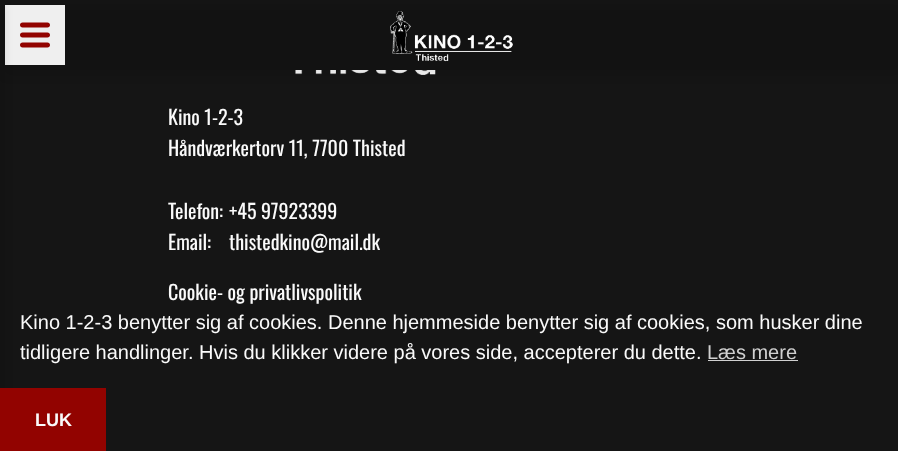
<svg xmlns="http://www.w3.org/2000/svg" width="898" height="451">
	<rect width="100%" height="100%" fill="#151515" />
	<image x="295" y="70" width="141" height="5" href="assets/img2.png" />
	<rect x="4" y="5" width="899" height="70" fill="#000000" fill-opacity="0.11" filter="blur(5px)" />
	<rect x="5" y="5" width="60" height="60" fill="#EFEFEF" />
	<path d="M47.5 37.5H22.5C21 37.5 20 36.5 20 35C20 33.5 21 32.5 22.5 32.5H47.5C49 32.5 50 33.5 50 35C50 36.5 49 37.5 47.5 37.5ZM47.5 47.5H22.5C21 47.5 20 46.5 20 45C20 43.5 21 42.5 22.5 42.5H47.5C49 42.5 50 43.5 50 45C50 46.5 49 47.5 47.5 47.5ZM47.5 27.5H22.5C21 27.5 20 26.5 20 25C20 23.5 21 22.5 22.5 22.5H47.5C49 22.5 50 23.5 50 25C50 26.5 49 27.5 47.5 27.5Z" fill="#920300" />
	<image x="390" y="11" width="123" height="51" href="assets/img1.png" />
	<rect x="-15" y="5" width="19" height="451" fill="#000000" fill-opacity="0.11" filter="blur(5px)" />
	<g font-family="Oswald" font-size="20" fill="#FAFAFA">
		<text x="168" y="125">Kino 1-2-3</text>
		<text x="168" y="156">Håndværkertorv 11, 7700 Thisted</text>
		<text x="168" y="219">Telefon:</text>
		<text x="229" y="219">+45 97923399</text>
		<text x="168" y="250">Email:</text>
		<text x="229" y="250">thistedkino@mail.dk</text>
		<text x="168" y="300">Cookie- og privatlivspolitik</text>
	</g>
	<g font-family="Liberation Sans" font-size="20" fill="#FAFAFA">
		<text x="20" y="329">Kino 1-2-3 benytter sig af cookies. Denne hjemmeside benytter sig af cookies, som husker dine</text>
		<text x="20" y="359">tidligere handlinger. Hvis du klikker videre på vores side, accepterer du dette.</text>
	</g>
	<text x="707" y="359" font-family="Liberation Sans" font-size="20" fill="#D0D0D0">Læs mere</text>
	<rect x="708" y="360" width="90" height="1" fill="#D0D0D0" />
	<rect x="0" y="388" width="106" height="63" fill="#920300" />
	<text x="35" y="426" font-family="Liberation Sans" font-size="18" font-weight="700" fill="#FAFAFA">LUK</text>
</svg>
